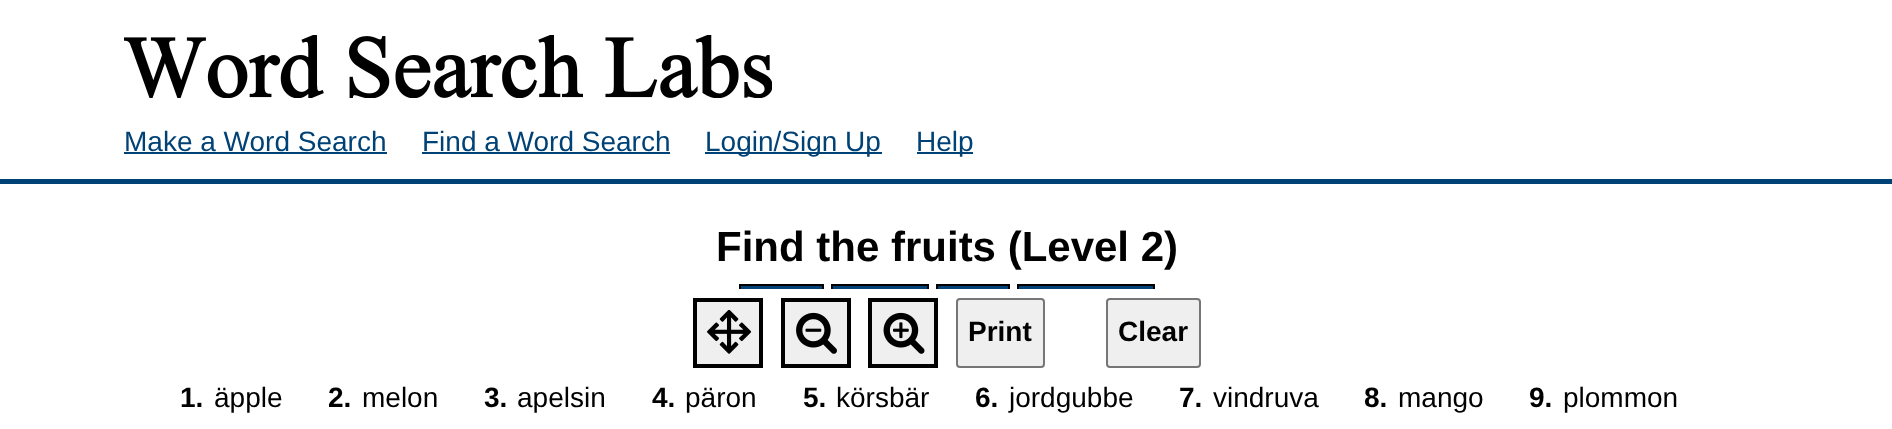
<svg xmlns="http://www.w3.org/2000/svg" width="1892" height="429">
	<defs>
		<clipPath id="clip1"><rect x="0" y="0" width="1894" height="289" /></clipPath>
	</defs>
	<rect width="100%" height="100%" fill="#FFFFFF" />
	<image x="124" y="35" width="648" height="63" href="assets/img1.png" />
	<text x="124" y="151" font-family="Liberation Sans" font-size="28" fill="#004276">Make a Word Search</text>
	<rect x="124" y="152" width="263" height="2" fill="#004276" />
	<text x="422" y="151" font-family="Liberation Sans" font-size="28" fill="#004276">Find a Word Search</text>
	<rect x="422" y="152" width="248" height="2" fill="#004276" />
	<rect x="705" y="152" width="177" height="2" fill="#004276" />
	<text x="705" y="151" font-family="Liberation Sans" font-size="28" fill="#004276">Login/Sign Up</text>
	<rect x="917" y="152" width="56" height="2" fill="#004276" />
	<text x="916" y="151" font-family="Liberation Sans" font-size="28" fill="#004276">Help</text>
	<rect x="0" y="179" width="1892" height="5" fill="#004276" />
	<text x="716" y="261" font-family="Liberation Sans" font-size="42" font-weight="700" fill="#000000">Find the fruits (Level 2)</text>
	<rect x="739" y="286" width="85" height="3" fill="#004276" />
	<rect x="697" y="302" width="62" height="62" fill="#EFEFEF" />
	<image x="707" y="310" width="44" height="44" href="assets/img2.png" />
	<rect x="695" y="300" width="66" height="66" fill="none" stroke="#000000" stroke-width="4" />
	<rect x="785" y="302" width="62" height="62" fill="#EFEFEF" />
	<image x="796" y="312" width="41" height="42" href="assets/img3.png" />
	<rect x="783" y="300" width="66" height="66" fill="none" stroke="#000000" stroke-width="4" />
	<g clip-path="url(#clip1)">
		<rect x="740" y="285" width="83" height="55" fill="none" stroke="#000000" stroke-width="2" />
	</g>
	<rect x="831" y="286" width="98" height="3" fill="#004276" />
	<rect x="872" y="302" width="62" height="62" fill="#EFEFEF" />
	<image x="883" y="312" width="42" height="42" href="assets/img4.png" />
	<rect x="870" y="300" width="66" height="66" fill="none" stroke="#000000" stroke-width="4" />
	<g clip-path="url(#clip1)">
		<rect x="832" y="285" width="96" height="55" fill="none" stroke="#000000" stroke-width="2" />
	</g>
	<rect x="936" y="286" width="74" height="3" fill="#004276" />
	<rect x="957" y="299" width="87" height="68" rx="3" fill="#EFEFEF" stroke="#767676" stroke-width="2" />
	<g clip-path="url(#clip1)">
		<rect x="937" y="285" width="72" height="55" fill="none" stroke="#000000" stroke-width="2" />
	</g>
	<rect x="1017" y="286" width="138" height="3" fill="#004276" />
	<rect x="1107" y="299" width="93" height="68" rx="3" fill="#EFEFEF" stroke="#767676" stroke-width="2" />
	<g clip-path="url(#clip1)">
		<rect x="1018" y="285" width="136" height="55" fill="none" stroke="#000000" stroke-width="2" />
	</g>
	<g font-family="Liberation Sans" font-size="28" font-weight="700" fill="#000000">
		<text x="968" y="341">Print</text>
		<text x="1118" y="341">Clear</text>
		<text x="180" y="407">1.</text>
	</g>
	<text x="214" y="407" font-family="Liberation Sans" font-size="28" fill="#000000">äpple</text>
	<text x="328" y="407" font-family="Liberation Sans" font-size="28" font-weight="700" fill="#000000">2.</text>
	<text x="362" y="407" font-family="Liberation Sans" font-size="28" fill="#000000">melon</text>
	<text x="484" y="407" font-family="Liberation Sans" font-size="28" font-weight="700" fill="#000000">3.</text>
	<text x="517" y="407" font-family="Liberation Sans" font-size="28" fill="#000000">apelsin</text>
	<text x="652" y="407" font-family="Liberation Sans" font-size="28" font-weight="700" fill="#000000">4.</text>
	<text x="685" y="407" font-family="Liberation Sans" font-size="28" fill="#000000">päron</text>
	<text x="803" y="407" font-family="Liberation Sans" font-size="28" font-weight="700" fill="#000000">5.</text>
	<text x="836" y="407" font-family="Liberation Sans" font-size="28" fill="#000000">körsbär</text>
	<text x="975" y="407" font-family="Liberation Sans" font-size="28" font-weight="700" fill="#000000">6.</text>
	<text x="1009" y="407" font-family="Liberation Sans" font-size="28" fill="#000000">jordgubbe</text>
	<text x="1179" y="407" font-family="Liberation Sans" font-size="28" font-weight="700" fill="#000000">7.</text>
	<text x="1213" y="407" font-family="Liberation Sans" font-size="28" fill="#000000">vindruva</text>
	<text x="1364" y="407" font-family="Liberation Sans" font-size="28" font-weight="700" fill="#000000">8.</text>
	<text x="1398" y="407" font-family="Liberation Sans" font-size="28" fill="#000000">mango</text>
	<text x="1529" y="407" font-family="Liberation Sans" font-size="28" font-weight="700" fill="#000000">9.</text>
	<text x="1563" y="407" font-family="Liberation Sans" font-size="28" fill="#000000">plommon</text>
</svg>
